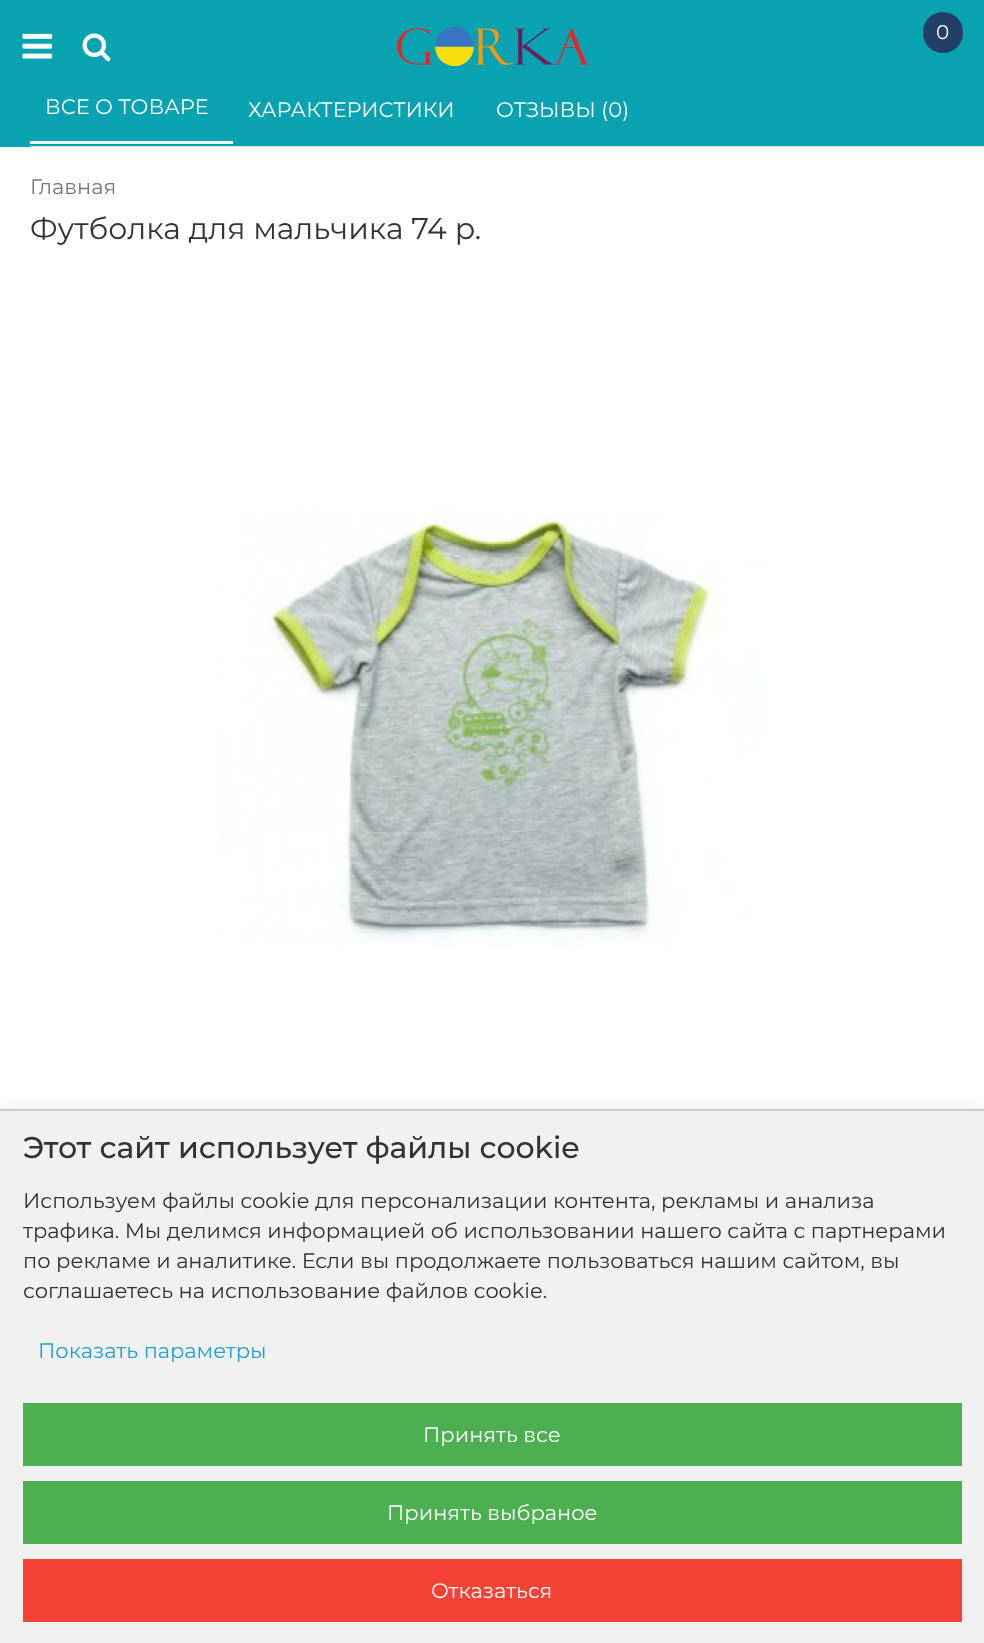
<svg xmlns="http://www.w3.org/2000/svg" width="984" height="1643">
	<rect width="100%" height="100%" fill="#FFFFFF" />
	<rect x="0" y="0" width="984" height="147" fill="#09A2B0" />
	<image x="22" y="33" width="31" height="26" href="assets/img1.png" />
	<image x="82" y="33" width="29" height="29" href="assets/img2.png" />
	<image x="396" y="26" width="193" height="41" href="assets/img3.png" />
	<rect x="923" y="12" width="40" height="41" rx="20" fill="#243F65" />
	<text x="936" y="39" font-family="Montserrat" font-size="20" fill="#FFFFFF">0</text>
	<rect x="30" y="146" width="954" height="1" fill="#DDDDDD" />
	<rect x="30" y="141" width="203" height="3" fill="#FFFFFF" />
	<g font-family="Montserrat" font-size="21" fill="#FFFFFF">
		<text x="45" y="114">ВСЕ О ТОВАРЕ</text>
		<text x="248" y="117">ХАРАКТЕРИСТИКИ</text>
		<text x="496" y="117">ОТЗЫВЫ (0)</text>
	</g>
	<text x="30" y="194" font-family="Montserrat" font-size="21" fill="#777777">Главная</text>
	<text x="30" y="239" font-family="Montserrat" font-size="30" fill="#333333">Футболка для мальчика 74 р.</text>
	<image x="219" y="510" width="544" height="439" href="assets/img4.png" />
	<rect x="0" y="1109" width="984" height="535" fill="#000000" fill-opacity="0.1" filter="blur(7.5px)" />
	<rect x="0" y="1111" width="984" height="532" fill="#F1F1F1" />
	<rect x="0" y="1109" width="984" height="2" fill="#CCCCCC" />
	<text x="23" y="1158" font-family="Montserrat" font-size="30" font-weight="500" fill="#333333">Этот сайт использует файлы cookie</text>
	<g font-family="Montserrat" font-size="21" fill="#333333">
		<text x="23" y="1208">Используем файлы cookie для персонализации контента, рекламы и анализа</text>
		<text x="23" y="1238">трафика. Мы делимся информацией об использовании нашего сайта с партнерами</text>
		<text x="23" y="1268">по рекламе и аналитике. Если вы продолжаете пользоваться нашим сайтом, вы</text>
		<text x="23" y="1298">соглашаетесь на использование файлов cookie.</text>
	</g>
	<text x="38" y="1358" font-family="Montserrat" font-size="21" fill="#23A1D1">Показать параметры</text>
	<rect x="23" y="1403" width="939" height="63" fill="#4CAF50" />
	<text x="423" y="1442" font-family="Montserrat" font-size="21" fill="#FFFFFF">Принять все</text>
	<rect x="23" y="1481" width="939" height="63" fill="#4CAF50" />
	<text x="387" y="1520" font-family="Montserrat" font-size="21" fill="#FFFFFF">Принять выбраное</text>
	<rect x="23" y="1559" width="939" height="63" fill="#F44336" />
	<text x="431" y="1598" font-family="Montserrat" font-size="21" fill="#FFFFFF">Отказаться</text>
</svg>
